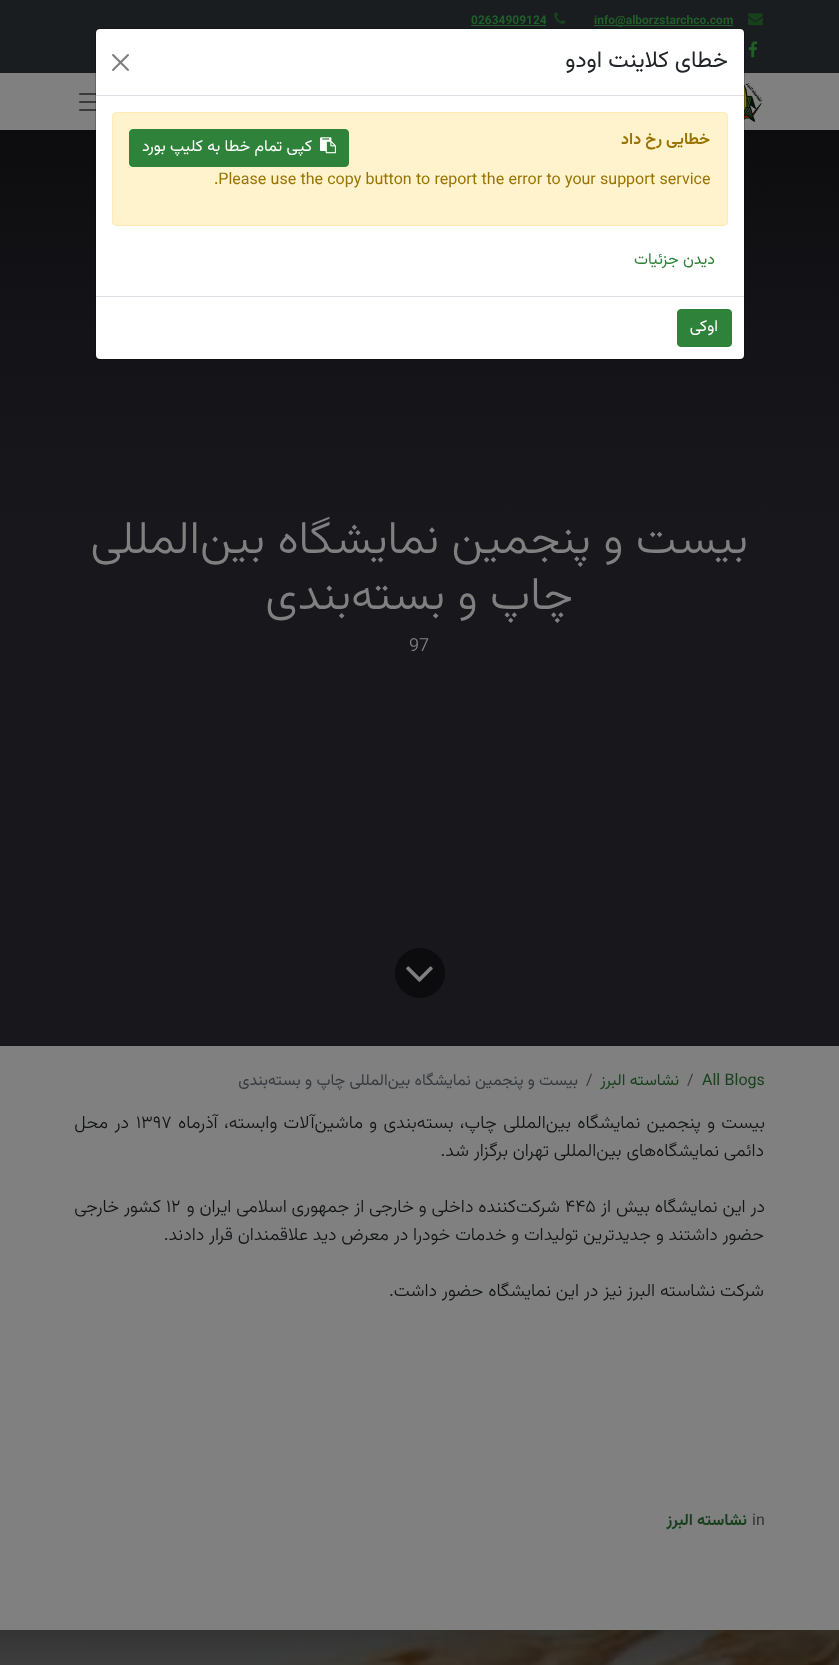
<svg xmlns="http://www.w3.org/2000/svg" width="839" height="1665">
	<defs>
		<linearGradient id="g1" gradientUnits="userSpaceOnUse" x1="420" y1="130" x2="420" y2="588"><stop offset="0" stop-color="#0C0C0E" /><stop offset="0.19" stop-color="#100F12" /><stop offset="0.34" stop-color="#121115" /><stop offset="0.47" stop-color="#141317" /><stop offset="0.56" stop-color="#151419" /><stop offset="0.65" stop-color="#16151A" /><stop offset="0.73" stop-color="#17161A" /><stop offset="0.8" stop-color="#17161B" /><stop offset="0.86" stop-color="#18171C" /><stop offset="0.91" stop-color="#18171C" /><stop offset="1" stop-color="#18171C" /></linearGradient>
	</defs>
	<rect width="100%" height="100%" fill="#808080" />
	<rect x="0" y="0" width="839" height="73" fill="#1A1D20" />
	<image x="748" y="13" width="15" height="13" href="assets/img1.png" />
	<rect x="594" y="25" width="139" height="1" fill="#215E29" />
	<text x="594" y="24" font-family="Vazirmatn" font-size="12" font-weight="700" fill="#215E29">info@alborzstarchco.com</text>
	<image x="554" y="12" width="12" height="12" href="assets/img2.png" />
	<text x="471" y="24" font-family="Vazirmatn" font-size="12" font-weight="700" fill="#215E29">02634909124</text>
	<rect x="471" y="25" width="75" height="1" fill="#215E29" />
	<image x="748" y="41" width="10" height="17" href="assets/img3.png" />
	<image x="744" y="83" width="19" height="39" href="assets/img4.png" />
	<image x="79" y="93" width="17" height="18" href="assets/img5.png" />
	<rect x="0" y="588" width="839" height="458" fill="#18171C" />
	<rect x="0" y="130" width="839" height="458" fill="url(#g1)" />
	<g font-family="Vazirmatn" font-size="46.25" font-weight="300" direction="rtl" fill="#808080">
		<text x="748" y="553">بیست و پنجمین نمایشگاه بین‌المللی</text>
		<text x="573" y="609">چاپ و بسته‌بندی</text>
	</g>
	<text x="409" y="651" font-family="Vazirmatn" font-size="18" font-weight="300" fill="#808080">97</text>
	<circle cx="420" cy="973" r="25" fill="#0C0C0E" />
	<image x="406" y="966" width="27" height="16" href="assets/img6.png" />
	<text x="702" y="1085" font-family="Vazirmatn" font-size="16" fill="#17411D">All Blogs</text>
	<text x="687" y="1085" font-family="Vazirmatn" font-size="16" fill="#363B3F">/</text>
	<text x="679" y="1085" font-family="Vazirmatn" font-size="16" direction="rtl" fill="#17411D">نشاسته البرز</text>
	<text x="586" y="1085" font-family="Vazirmatn" font-size="16" fill="#363B3F">/</text>
	<text x="578" y="1085" font-family="Vazirmatn" font-size="16" direction="rtl" fill="#363B3F">بیست و پنجمین نمایشگاه بین‌المللی چاپ و بسته‌بندی</text>
	<text x="765" y="1128" word-spacing="1.5" font-family="Vazirmatn" font-size="18" font-weight="300" direction="rtl" fill="#111315">بیست و پنجمین نمایشگاه بین‌المللی چاپ، بسته‌بندی و ماشین‌آلات وابسته، آذرماه</text>
	<text x="136" y="1128" font-family="Vazirmatn" font-size="18" font-weight="300" fill="#111315">۱۳۹۷</text>
	<g font-family="Vazirmatn" font-size="18" font-weight="300" direction="rtl" fill="#111315">
		<text x="129" y="1128" word-spacing="1.5">در محل</text>
		<text x="764" y="1156">دائمی نمایشگاه‌های بین‌المللی تهران برگزار شد.</text>
		<text x="765" y="1212">در این نمایشگاه بیش از</text>
	</g>
	<text x="565" y="1212" font-family="Vazirmatn" font-size="18" font-weight="300" fill="#111315">۴۴۵</text>
	<text x="560" y="1212" font-family="Vazirmatn" font-size="18" font-weight="300" direction="rtl" fill="#111315">شرکت‌کننده داخلی و خارجی از جمهوری اسلامی ایران و</text>
	<text x="166" y="1212" font-family="Vazirmatn" font-size="18" font-weight="300" fill="#111315">۱۲</text>
	<g font-family="Vazirmatn" font-size="18" font-weight="300" direction="rtl" fill="#111315">
		<text x="161" y="1212">کشور خارجی</text>
		<text x="764" y="1240">حضور داشتند و جدیدترین تولیدات و خدمات خودرا در معرض دید علاقمندان قرار دادند.</text>
		<text x="764" y="1296">شرکت نشاسته البرز نیز در این نمایشگاه حضور داشت.</text>
	</g>
	<text x="752" y="1525" font-family="Vazirmatn" font-size="16" fill="#323335">in</text>
	<text x="747" y="1525" font-family="Vazirmatn" font-size="16" font-weight="700" direction="rtl" fill="#17411D">نشاسته البرز</text>
	<image x="0" y="1630" width="839" height="35" href="assets/img7.png" />
	<rect x="96" y="29" width="648" height="330" rx="4" fill="#FFFFFF" />
	<rect x="95.5" y="28.5" width="649" height="331" rx="4.5" fill="none" stroke="#000000" stroke-opacity="0.2" />
	<rect x="96" y="95" width="648" height="1" fill="#DEE2E6" />
	<text x="728" y="67" font-family="Vazirmatn" font-size="23" direction="rtl" fill="#212529">خطای کلاینت اودو</text>
	<image x="112" y="54" width="17" height="17" href="assets/img8.png" />
	<rect x="112.5" y="112.5" width="615" height="113" rx="3.5" fill="#FFF3CD" stroke="#FFECB5" />
	<text x="710" y="144" font-family="Vazirmatn" font-size="16" font-weight="700" direction="rtl" fill="#997404">خطایی رخ داد</text>
	<rect x="129.5" y="129.5" width="219" height="37" rx="3.5" fill="#2E8239" stroke="#2E8239" />
	<image x="320" y="137" width="16" height="17" href="assets/img9.png" />
	<text x="312" y="151" font-family="Vazirmatn" font-size="16" direction="rtl" fill="#FFFFFF">کپی تمام خطا به کلیپ بورد</text>
	<text x="214" y="184" font-family="Vazirmatn" font-size="16" fill="#997404">.Please use the copy button to report the error to your support service</text>
	<text x="715" y="264" font-family="Vazirmatn" font-size="16" direction="rtl" fill="#2E8239">دیدن جزئیات</text>
	<rect x="96" y="296" width="648" height="1" fill="#DEE2E6" />
	<rect x="677.5" y="309.5" width="54" height="37" rx="3.5" fill="#2E8239" stroke="#2E8239" />
	<text x="718" y="331" font-family="Vazirmatn" font-size="16" direction="rtl" fill="#FFFFFF">اوکی</text>
</svg>
